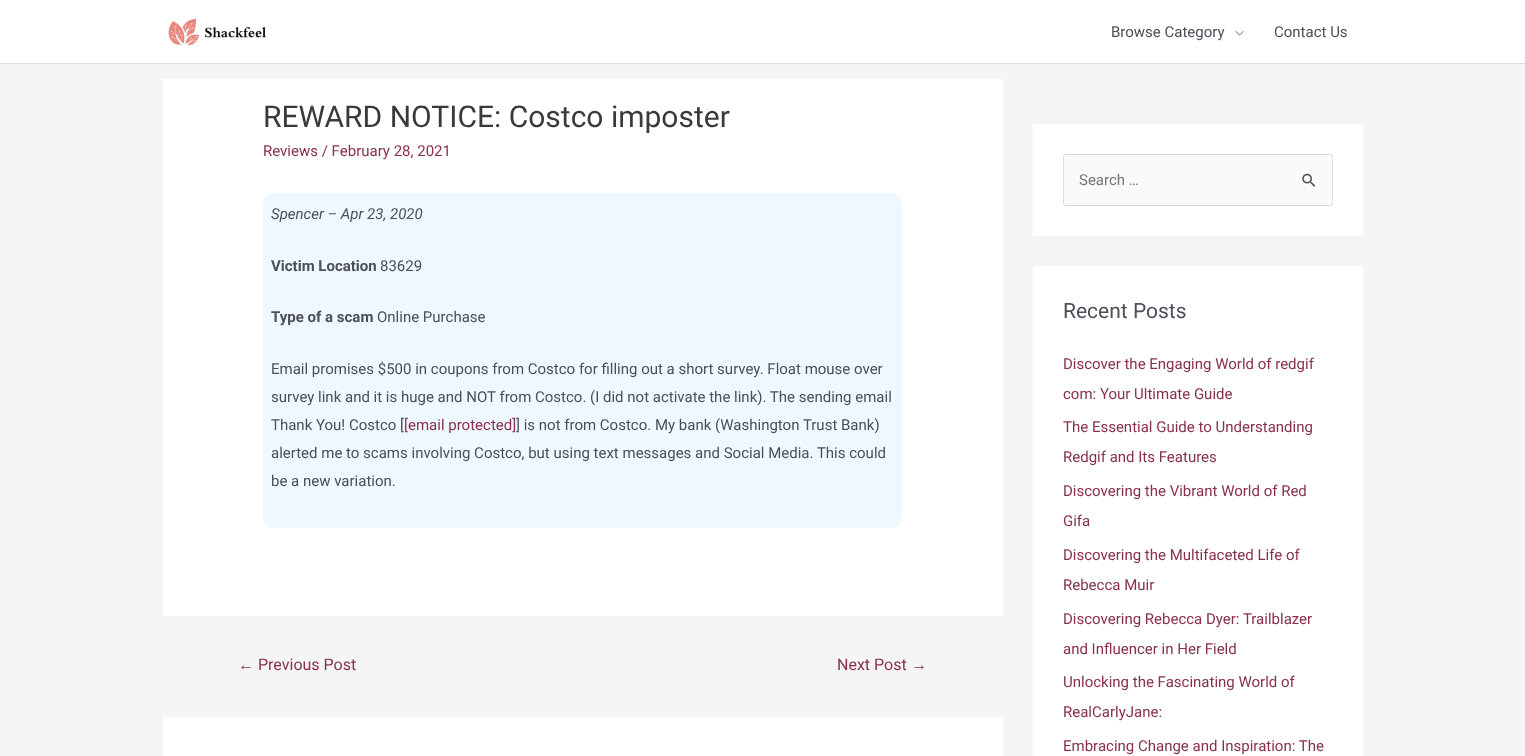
<svg xmlns="http://www.w3.org/2000/svg" width="1525" height="756">
	<rect width="100%" height="100%" fill="#F5F5F5" />
	<rect x="0" y="0" width="1525" height="63" fill="#FFFFFF" />
	<rect x="0" y="63" width="1525" height="1" fill="#DDDDDD" />
	<image x="168" y="18" width="98" height="28" href="assets/img1.png" />
	<text x="1111" y="37" font-family="Roboto" font-size="15" fill="#4B4F58">Browse Category</text>
	<image x="1235" y="31" width="9" height="5" href="assets/img2.png" />
	<text x="1274" y="37" font-family="Roboto" font-size="15" fill="#4B4F58">Contact Us</text>
	<rect x="163" y="79" width="840" height="537" fill="#FFFFFF" />
	<text x="263" y="127" font-family="Roboto" font-size="30" fill="#3A3A3A">REWARD NOTICE: Costco imposter</text>
	<text x="263" y="156" font-family="Roboto" font-size="15" fill="#88304E">Reviews / February 28, 2021</text>
	<rect x="263" y="193" width="639" height="335" rx="10" fill="#F0F8FF" />
	<text x="271" y="219" font-family="Roboto" font-size="15" font-style="italic" fill="#4B4F58">Spencer – Apr 23, 2020</text>
	<text x="271" y="271" font-family="Roboto" font-size="15" font-weight="700" fill="#4B4F58">Victim Location</text>
	<text x="380" y="271" font-family="Roboto" font-size="15" fill="#4B4F58">83629</text>
	<text x="271" y="322" font-family="Roboto" font-size="15" font-weight="700" fill="#4B4F58">Type of a scam</text>
	<g font-family="Roboto" font-size="15" fill="#4B4F58">
		<text x="377" y="322">Online Purchase</text>
		<text x="271" y="374">Email promises $500 in coupons from Costco for filling out a short survey. Float mouse over</text>
		<text x="271" y="402">survey link and it is huge and NOT from Costco. (I did not activate the link). The sending email</text>
		<text x="271" y="430">Thank You! Costco [</text>
	</g>
	<text x="404" y="430" font-family="Roboto" font-size="15" fill="#88304E">[email protected]</text>
	<g font-family="Roboto" font-size="15" fill="#4B4F58">
		<text x="516" y="430">] is not from Costco. My bank (Washington Trust Bank)</text>
		<text x="271" y="458">alerted me to scams involving Costco, but using text messages and Social Media. This could</text>
		<text x="271" y="486">be a new variation.</text>
	</g>
	<text x="238" y="670" font-family="Liberation Sans" font-size="16" fill="#88304E">←</text>
	<g font-family="Roboto" font-size="16" fill="#88304E">
		<text x="258" y="670">Previous Post</text>
		<text x="837" y="670">Next Post</text>
	</g>
	<text x="911" y="670" font-family="Liberation Sans" font-size="16" fill="#88304E">→</text>
	<rect x="163" y="717" width="840" height="39" fill="#FFFFFF" />
	<rect x="1033" y="124" width="330" height="112" fill="#FFFFFF" />
	<rect x="1063.5" y="154.5" width="269" height="51" rx="1.5" fill="#FAFAFA" stroke="#DDDDDD" />
	<text x="1079" y="185" font-family="Roboto" font-size="15" fill="#757575">Search …</text>
	<image x="1302" y="173" width="14" height="14" href="assets/img3.png" />
	<rect x="1033" y="266" width="330" height="490" fill="#FFFFFF" />
	<text x="1063" y="318" font-family="Roboto" font-size="21" fill="#4B4F58">Recent Posts</text>
	<g font-family="Roboto" font-size="15" fill="#88304E">
		<text x="1063" y="369">Discover the Engaging World of redgif</text>
		<text x="1063" y="399">com: Your Ultimate Guide</text>
		<text x="1063" y="432">The Essential Guide to Understanding</text>
		<text x="1063" y="462">Redgif and Its Features</text>
		<text x="1063" y="496">Discovering the Vibrant World of Red</text>
		<text x="1063" y="526">Gifa</text>
		<text x="1063" y="560">Discovering the Multifaceted Life of</text>
		<text x="1063" y="590">Rebecca Muir</text>
		<text x="1063" y="624">Discovering Rebecca Dyer: Trailblazer</text>
		<text x="1063" y="654">and Influencer in Her Field</text>
		<text x="1063" y="687">Unlocking the Fascinating World of</text>
		<text x="1063" y="717">RealCarlyJane:</text>
		<text x="1063" y="751">Embracing Change and Inspiration: The</text>
	</g>
</svg>
